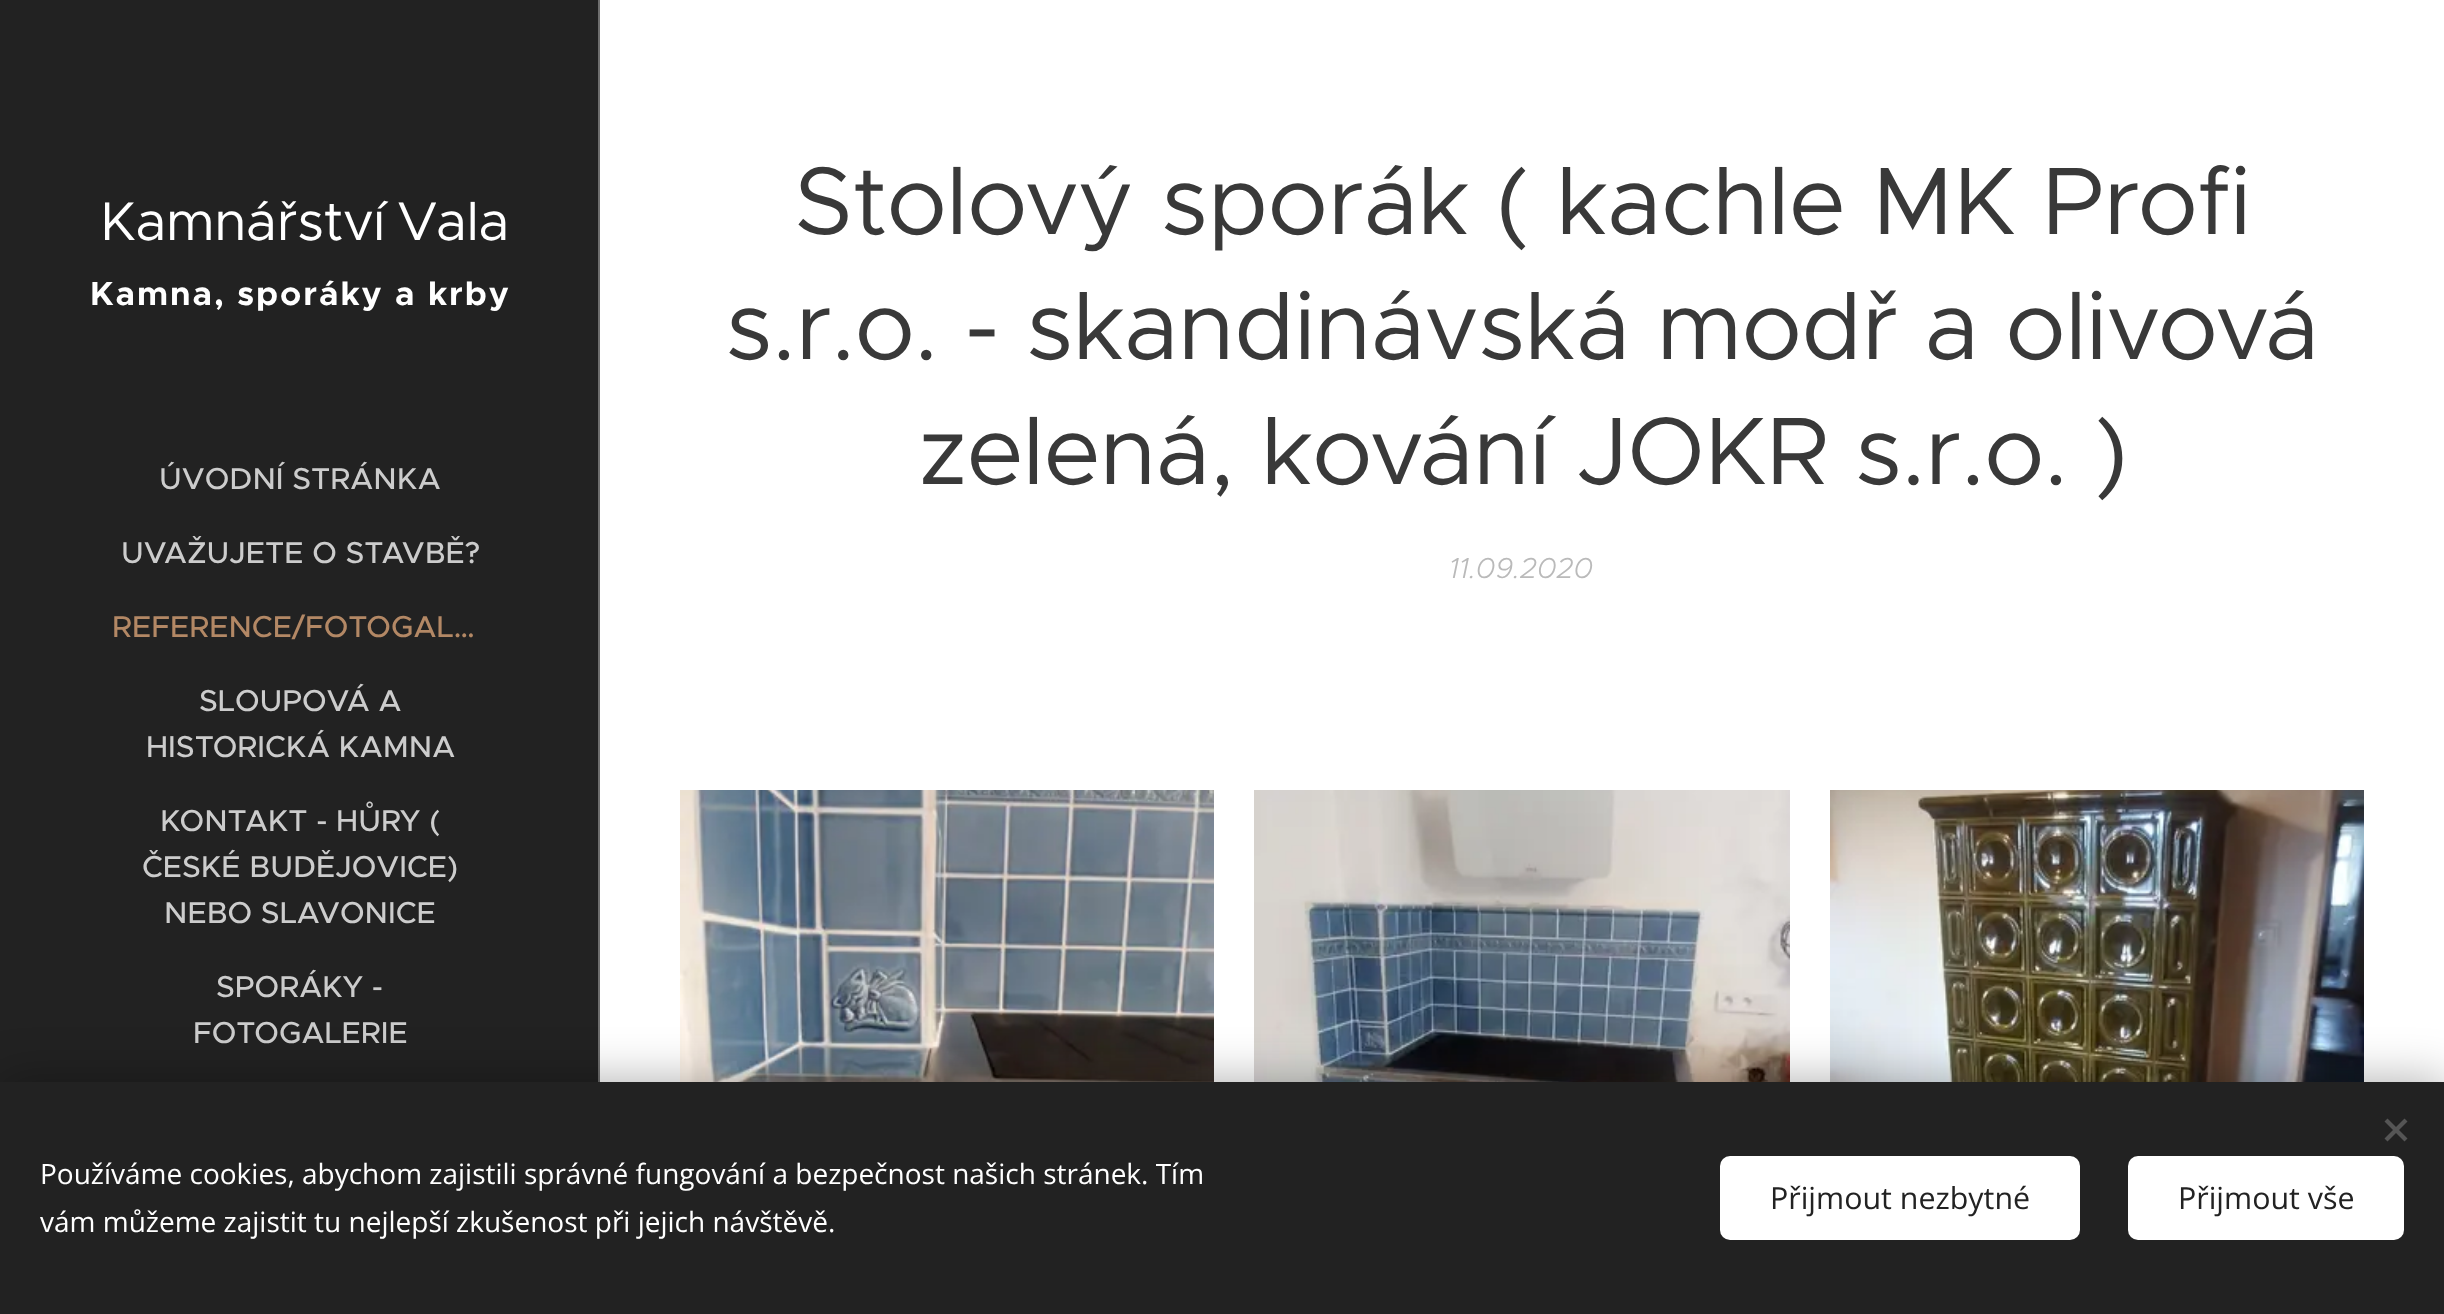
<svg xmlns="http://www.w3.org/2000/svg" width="2444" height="1314">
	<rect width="100%" height="100%" fill="#FFFFFF" />
	<rect x="0" y="0" width="598" height="1082" fill="#222222" />
	<text x="100" y="240" word-spacing="-3" font-family="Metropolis" font-size="54.5" letter-spacing="-0.6" fill="#FFFFFF">Kamnářství Vala</text>
	<text x="90" y="305" font-family="Metropolis" font-size="33.5" font-weight="700" letter-spacing="2" fill="#FFFFFF">Kamna, sporáky a krby</text>
	<g font-family="Metropolis" font-size="30.4" font-weight="500" fill="#CCCCCC">
		<text x="159" y="489">ÚVODNÍ STRÁNKA</text>
		<text x="121" y="563">UVAŽUJETE O STAVBĚ?</text>
	</g>
	<text x="112" y="637" font-family="Metropolis" font-size="30.4" font-weight="500" fill="#B38865">REFERENCE/FOTOGAL…</text>
	<g font-family="Metropolis" font-size="30.4" font-weight="500" fill="#CCCCCC">
		<text x="199" y="711">SLOUPOVÁ A</text>
		<text x="146" y="757">HISTORICKÁ KAMNA</text>
		<text x="160" y="831">KONTAKT - HŮRY (</text>
		<text x="142" y="877">ČESKÉ BUDĚJOVICE)</text>
		<text x="164" y="923">NEBO SLAVONICE</text>
		<text x="216" y="997">SPORÁKY -</text>
		<text x="193" y="1043">FOTOGALERIE</text>
	</g>
	<rect x="598" y="0" width="2" height="1082" fill="#6E6E6E" />
	<g font-family="Metropolis" font-size="96" letter-spacing="-0.95" fill="#393939">
		<text x="794" y="234">Stolový sporák ( kachle MK Profi</text>
		<text x="725" y="359">s.r.o. - skandinávská modř a olivová</text>
		<text x="918" y="484">zelená, kování JOKR s.r.o. )</text>
	</g>
	<text x="1449" y="578" font-family="Metropolis" font-size="29" font-weight="300" font-style="italic" fill="#BABABA">11.09.2020</text>
	<image x="680" y="790" width="534" height="292" href="assets/img1.png" />
	<image x="1254" y="790" width="536" height="292" href="assets/img2.png" />
	<image x="1830" y="790" width="534" height="292" href="assets/img3.png" />
	<rect x="0" y="1082" width="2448" height="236" fill="#000000" fill-opacity="0.33" filter="blur(25px)" />
	<rect x="0" y="1082" width="2444" height="232" fill="#222222" />
	<path d="M2384.5 1138.5L2404.5 1118.5L2407.5 1121.5L2387.5 1141.5Z" fill="#555555" />
	<path d="M2387.5 1118.5L2407.5 1138.5L2404.5 1141.5L2384.5 1121.5Z" fill="#555555" />
	<g font-family="Open Sans" font-size="28" fill="#FFFFFF">
		<text x="40" y="1184">Používáme cookies, abychom zajistili správné fungování a bezpečnost našich stránek. Tím</text>
		<text x="40" y="1232">vám můžeme zajistit tu nejlepší zkušenost při jejich návštěvě.</text>
	</g>
	<rect x="1720" y="1156" width="360" height="84" rx="10" fill="#FFFFFF" />
	<text x="1770" y="1209" font-family="Open Sans" font-size="30.4" fill="#222222">Přijmout nezbytné</text>
	<rect x="2128" y="1156" width="276" height="84" rx="10" fill="#FFFFFF" />
	<text x="2178" y="1209" font-family="Open Sans" font-size="30.4" fill="#222222">Přijmout vše</text>
</svg>
